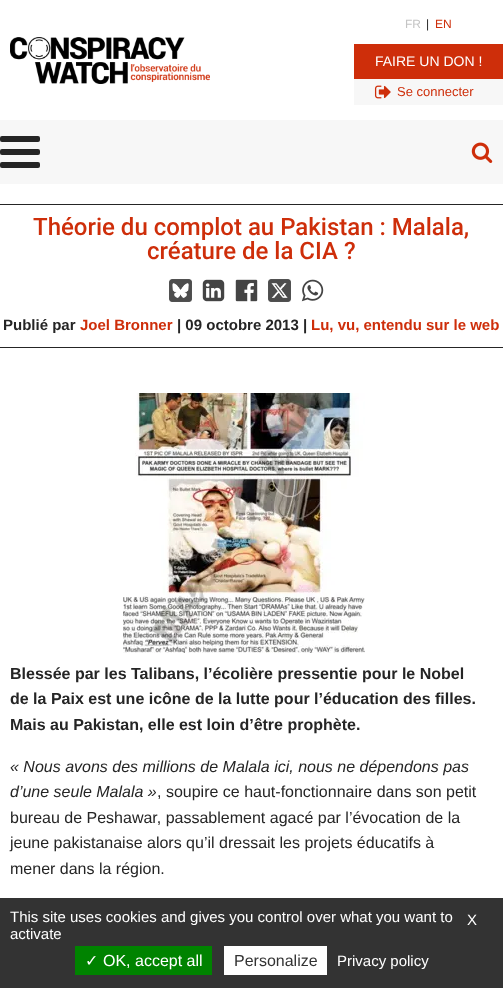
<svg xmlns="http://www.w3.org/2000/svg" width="503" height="988">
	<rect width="100%" height="100%" fill="#FFFFFF" />
	<image x="10" y="37" width="200" height="47" href="assets/img1.png" />
	<text x="405" y="28" font-family="Liberation Sans" font-size="12" fill="#C4C4C4">FR</text>
	<text x="426" y="28" font-family="Liberation Sans" font-size="12" fill="#252525">|</text>
	<text x="435" y="28" font-family="Liberation Sans" font-size="12" fill="#CE2E0A">EN</text>
	<rect x="354" y="44" width="149" height="35" fill="#CE2E0A" />
	<text x="375" y="66" font-family="Liberation Sans" font-size="14" fill="#FFFFFF">FAIRE UN DON !</text>
	<rect x="354" y="79" width="149" height="26" fill="#F7F7F7" />
	<image x="374" y="85" width="17" height="14" href="assets/img2.png" />
	<text x="397" y="96" font-family="Liberation Sans" font-size="13" fill="#CE2E0A">Se connecter</text>
	<rect x="0" y="120" width="503" height="64" fill="#F7F7F7" />
	<rect x="0" y="136" width="40" height="6" rx="2" fill="#252525" />
	<rect x="0" y="149" width="40" height="6" rx="2" fill="#252525" />
	<rect x="0" y="162" width="40" height="6" rx="2" fill="#252525" />
	<image x="471" y="142" width="22" height="21" href="assets/img3.png" />
	<rect x="0" y="204" width="503" height="1" fill="#252525" />
	<g font-family="Roboto" font-size="24" font-weight="500" fill="#CE2E0A">
		<text x="33" y="235">Théorie du complot au Pakistan : Malala,</text>
		<text x="147" y="259">créature de la CIA ?</text>
	</g>
	<image x="169" y="279" width="23" height="23" href="assets/img4.png" />
	<image x="202" y="279" width="23" height="23" href="assets/img5.png" />
	<image x="235" y="279" width="23" height="23" href="assets/img6.png" />
	<image x="268" y="279" width="23" height="23" href="assets/img7.png" />
	<image x="301" y="279" width="23" height="23" href="assets/img8.png" />
	<rect x="0" y="347" width="503" height="1" fill="#252525" />
	<text x="3" y="330" font-family="Liberation Sans" font-size="15" font-weight="700" fill="#252525">Publié par</text>
	<text x="80" y="330" font-family="Liberation Sans" font-size="15" font-weight="700" fill="#CE2E0A">Joel Bronner</text>
	<text x="177" y="330" font-family="Liberation Sans" font-size="15" font-weight="700" fill="#252525">| 09 octobre 2013 |</text>
	<text x="311" y="330" font-family="Liberation Sans" font-size="15" font-weight="700" fill="#CE2E0A">Lu, vu, entendu sur le web</text>
	<image x="123" y="393" width="242" height="260" href="assets/img9.png" />
	<g font-family="Liberation Sans" font-size="16" font-weight="700" fill="#252525">
		<text x="10" y="679">Blessée par les Talibans, l’écolière pressentie pour le Nobel</text>
		<text x="10" y="704">de la Paix est une icône de la lutte pour l’éducation des filles.</text>
		<text x="10" y="730">Mais au Pakistan, elle est loin d’être prophète.</text>
	</g>
	<g font-family="Liberation Sans" font-size="16" font-style="italic" fill="#252525">
		<text x="10" y="772">« Nous avons des millions de Malala ici, nous ne dépendons pas</text>
		<text x="10" y="797">d’une seule Malala »</text>
	</g>
	<g font-family="Liberation Sans" font-size="16" fill="#252525">
		<text x="157" y="797">, soupire ce haut-fonctionnaire dans son petit</text>
		<text x="10" y="823">bureau de Peshawar, passablement agacé par l’évocation de la</text>
		<text x="10" y="848">jeune pakistanaise alors qu’il dressait les projets éducatifs à</text>
		<text x="10" y="874">mener dans la région.</text>
	</g>
	<rect x="0" y="898" width="503" height="90" fill="#333333" />
	<g font-family="Liberation Sans" font-size="15" fill="#FFFFFF">
		<text x="10" y="922">This site uses cookies and gives you control over what you want to</text>
		<text x="10" y="939">activate</text>
		<text x="467" y="925">X</text>
	</g>
	<rect x="75" y="946" width="137" height="29" fill="#008300" />
	<text x="85" y="966" font-family="DejaVu Sans" font-size="16" fill="#FFFFFF">✓</text>
	<text x="103" y="966" font-family="Liberation Sans" font-size="16" fill="#FFFFFF">OK, accept all</text>
	<rect x="224" y="946" width="103" height="29" fill="#FFFFFF" />
	<text x="234" y="966" font-family="Liberation Sans" font-size="16" fill="#333333">Personalize</text>
	<text x="337" y="966" font-family="Liberation Sans" font-size="15" fill="#FFFFFF">Privacy policy</text>
</svg>
